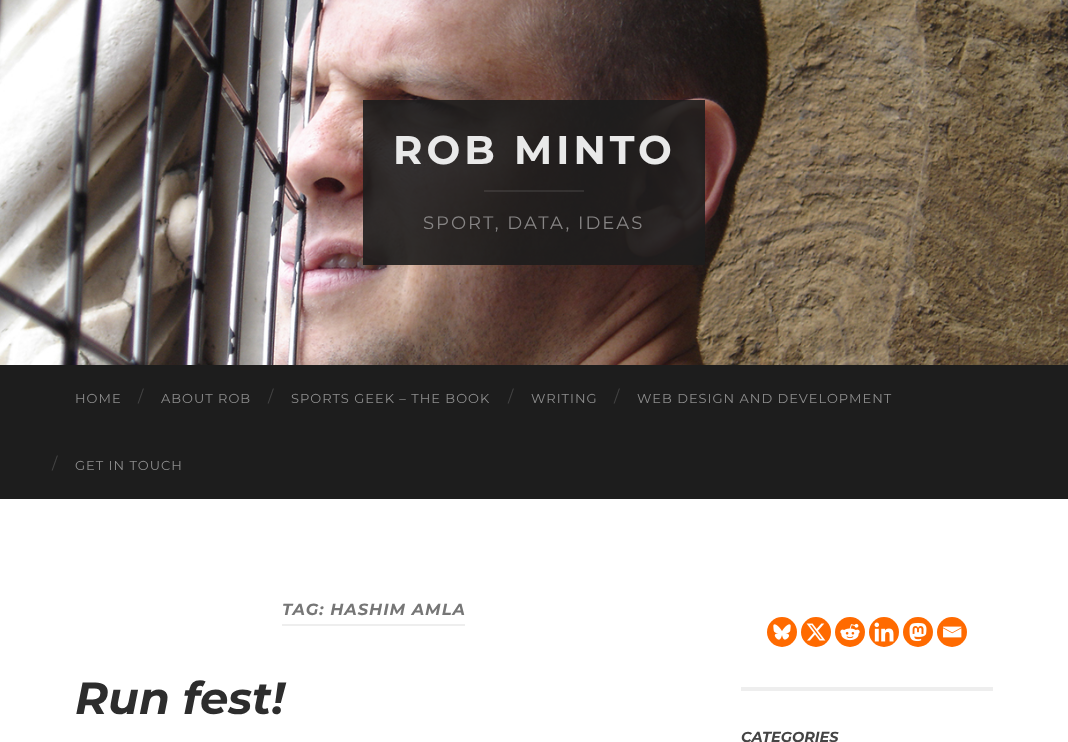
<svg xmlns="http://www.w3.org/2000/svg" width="1068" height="742">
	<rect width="100%" height="100%" fill="#FFFFFF" />
	<image x="0" y="0" width="1068" height="365" href="assets/img1.png" />
	<rect x="363" y="100" width="342" height="165" fill="#1D1D1D" fill-opacity="0.9" />
	<text x="393" y="164" font-family="Montserrat" font-size="40" font-weight="700" letter-spacing="4" fill="#E9E9E9">ROB MINTO</text>
	<rect x="484" y="190" width="100" height="2" fill="#FFFFFF" fill-opacity="0.09" />
	<text x="423" y="229" font-family="Montserrat" font-size="18" letter-spacing="2" fill="#878585">SPORT, DATA, IDEAS</text>
	<rect x="0" y="365" width="1068" height="134" fill="#1D1D1D" />
	<text x="75" y="403" font-family="Montserrat" font-size="13" letter-spacing="1" fill="#8E8E8E">HOME</text>
	<text x="138" y="402" font-family="Montserrat" font-size="16" fill="#444444">/</text>
	<text x="161" y="403" font-family="Montserrat" font-size="13" letter-spacing="1" fill="#8E8E8E">ABOUT ROB</text>
	<text x="268" y="402" font-family="Montserrat" font-size="16" fill="#444444">/</text>
	<text x="291" y="403" font-family="Montserrat" font-size="13" letter-spacing="1" fill="#8E8E8E">SPORTS GEEK – THE BOOK</text>
	<text x="508" y="402" font-family="Montserrat" font-size="16" fill="#444444">/</text>
	<text x="531" y="403" font-family="Montserrat" font-size="13" letter-spacing="1" fill="#8E8E8E">WRITING</text>
	<text x="614" y="402" font-family="Montserrat" font-size="16" fill="#444444">/</text>
	<text x="637" y="403" font-family="Montserrat" font-size="13" letter-spacing="1" fill="#8E8E8E">WEB DESIGN AND DEVELOPMENT</text>
	<text x="52" y="469" font-family="Montserrat" font-size="16" fill="#444444">/</text>
	<text x="75" y="470" font-family="Montserrat" font-size="13" letter-spacing="1" fill="#8E8E8E">GET IN TOUCH</text>
	<rect x="282" y="624" width="183" height="2" fill="#EEEEEE" />
	<text x="282" y="615" font-family="Montserrat" font-size="16.25" font-weight="700" font-style="italic" letter-spacing="1" fill="#767676">TAG: HASHIM AMLA</text>
	<text x="75" y="714" font-family="Montserrat" font-size="45" font-weight="700" font-style="italic" fill="#2D2D2D">Run fest!</text>
	<rect x="741" y="687" width="252" height="4" fill="#EEEEEE" />
	<circle cx="782" cy="632" r="15" fill="#FF6A00" />
	<image x="773" y="624" width="18" height="16" href="assets/img2.png" />
	<circle cx="816" cy="632" r="15" fill="#FF6A00" />
	<image x="806" y="623" width="20" height="18" href="assets/img3.png" />
	<circle cx="850" cy="632" r="15" fill="#FF6A00" />
	<image x="840" y="623" width="20" height="18" href="assets/img4.png" />
	<circle cx="884" cy="632" r="15" fill="#FF6A00" />
	<image x="874" y="622" width="20" height="20" href="assets/img5.png" />
	<circle cx="918" cy="632" r="15" fill="#FF6A00" />
	<image x="909" y="622" width="18" height="20" href="assets/img6.png" />
	<circle cx="952" cy="632" r="15" fill="#FF6A00" />
	<image x="943" y="626" width="19" height="12" href="assets/img7.png" />
	<text x="741" y="742" font-family="Montserrat" font-size="14.5" font-weight="700" font-style="italic" fill="#444444">CATEGORIES</text>
</svg>
